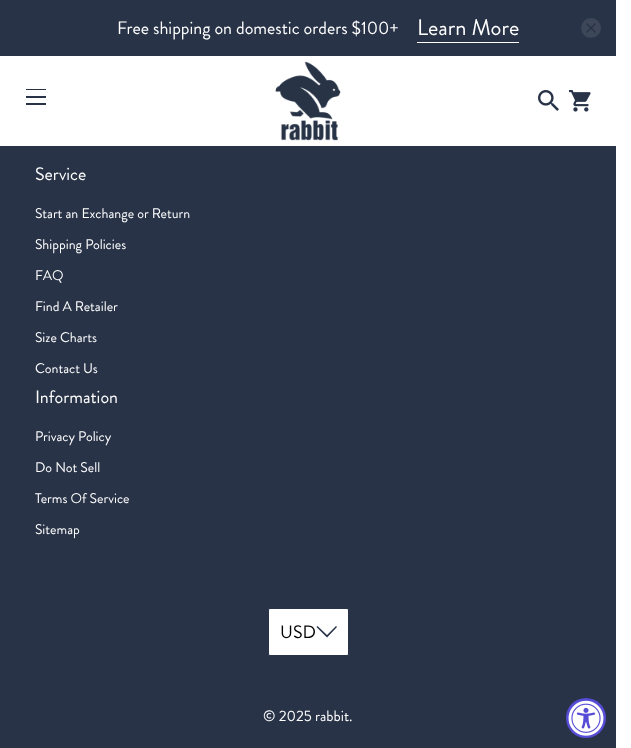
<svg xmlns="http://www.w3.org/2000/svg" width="631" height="748">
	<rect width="100%" height="100%" fill="#FFFFFF" />
	<rect x="0" y="0" width="616" height="56" fill="#283347" />
	<text x="117" y="34" font-family="Brandon Grotesque" font-size="18" fill="#FFFFFF">Free shipping on domestic orders $100+</text>
	<rect x="417" y="42" width="102" height="1" fill="#FFFFFF" />
	<text x="417" y="35" font-family="Brandon Grotesque" font-size="22.5" fill="#FFFFFF">Learn More</text>
	<circle cx="591" cy="28" r="10" fill="#3E4759" />
	<image x="586" y="23" width="10" height="10" href="assets/img1.png" />
	<rect x="26" y="89" width="20" height="1" fill="#283347" />
	<rect x="26" y="96" width="20" height="2" fill="#283347" />
	<rect x="26" y="103" width="20" height="2" fill="#283347" />
	<image x="275" y="61" width="66" height="80" href="assets/img2.png" />
	<image x="538" y="90" width="21" height="21" href="assets/img3.png" />
	<image x="569" y="90" width="22" height="22" href="assets/img4.png" />
	<rect x="0" y="146" width="616" height="602" fill="#283347" />
	<text x="35" y="180" font-family="Brandon Grotesque" font-size="18" fill="#FFFFFF">Service</text>
	<g font-family="Brandon Grotesque" font-size="14" fill="#FFFFFF">
		<text x="35" y="218">Start an Exchange or Return</text>
		<text x="35" y="249">Shipping Policies</text>
		<text x="35" y="280">FAQ</text>
		<text x="35" y="311">Find A Retailer</text>
		<text x="35" y="342">Size Charts</text>
		<text x="35" y="373">Contact Us</text>
	</g>
	<text x="35" y="403" font-family="Brandon Grotesque" font-size="18" fill="#FFFFFF">Information</text>
	<g font-family="Brandon Grotesque" font-size="14" fill="#FFFFFF">
		<text x="35" y="441">Privacy Policy</text>
		<text x="35" y="472">Do Not Sell</text>
		<text x="35" y="503">Terms Of Service</text>
		<text x="35" y="534">Sitemap</text>
	</g>
	<rect x="268.5" y="608.5" width="80" height="47" rx="1.5" fill="#FFFFFF" stroke="#283347" />
	<text x="280" y="638" font-family="Brandon Grotesque" font-size="18" fill="#000000">USD</text>
	<path d="M327 637.5L316.5 627L317.5 626L327 635L336 626L337 627Z" fill="#283347" />
	<text x="263" y="721" font-family="Brandon Grotesque" font-size="15" fill="#FFFFFF">© 2025 rabbit.</text>
	<circle cx="586" cy="718" r="20" fill="#574CD5" />
	<image x="568" y="700" width="36" height="36" href="assets/img5.png" />
</svg>
